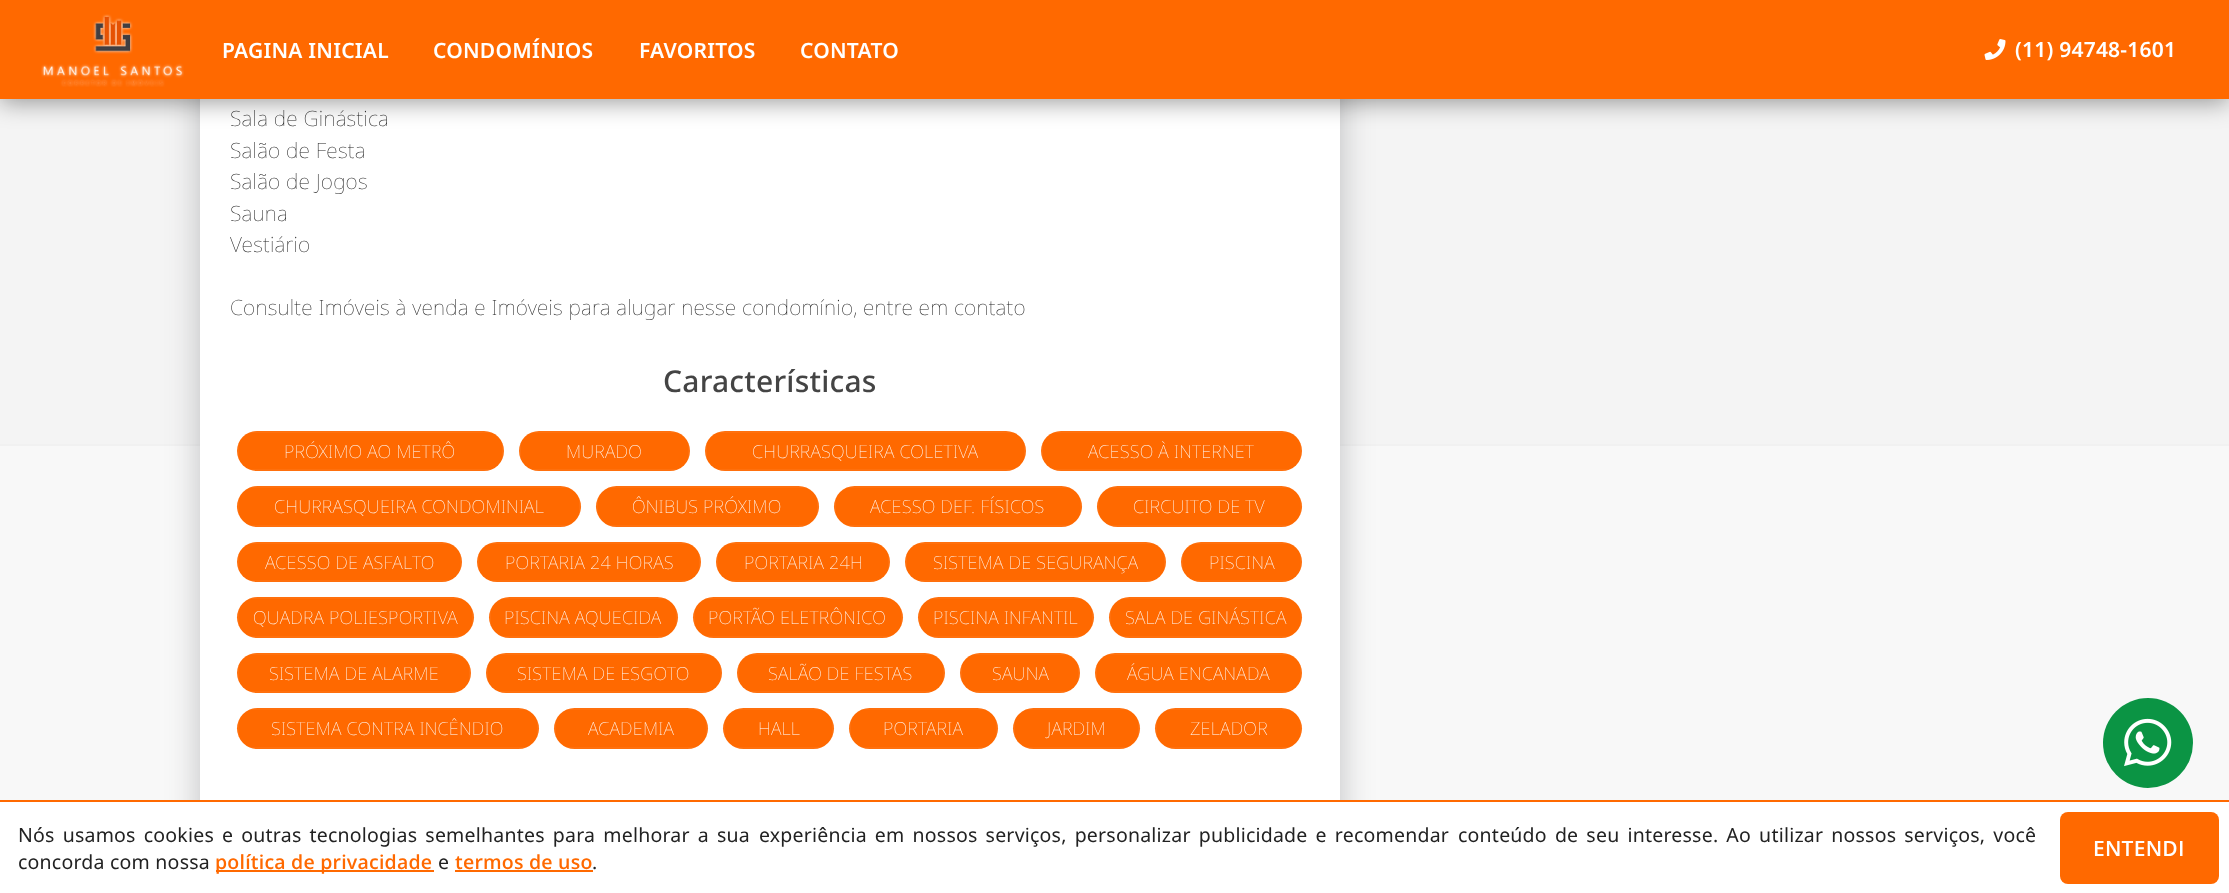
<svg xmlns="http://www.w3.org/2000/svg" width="2229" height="893">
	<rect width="100%" height="100%" fill="#F8F8F8" />
	<rect x="0" y="99" width="2229" height="345" fill="#F4F4F4" />
	<rect x="0" y="444" width="2229" height="2" fill="#F1F1F1" />
	<rect x="200" y="-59" width="1140" height="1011" rx="9" fill="#3B4047" fill-opacity="0.3" filter="blur(16.5px)" />
	<rect x="200" y="99" width="1140" height="701" fill="#FFFFFF" />
	<rect x="0" y="3" width="2229" height="99" fill="#000000" fill-opacity="0.4" filter="blur(12px)" />
	<rect x="0" y="0" width="2229" height="99" fill="#FF6900" />
	<image x="41" y="14" width="143" height="73" href="assets/img1.png" />
	<g font-family="Noto Sans" font-size="21" font-weight="600" letter-spacing="0.22" fill="#FFFFFF">
		<text x="222" y="58">PAGINA INICIAL</text>
		<text x="433" y="58">CONDOMÍNIOS</text>
		<text x="639" y="58">FAVORITOS</text>
		<text x="800" y="58">CONTATO</text>
	</g>
	<image x="1984" y="39" width="22" height="21" href="assets/img2.png" />
	<text x="2015" y="57" font-family="Noto Sans" font-size="21" font-weight="600" letter-spacing="0.22" fill="#FFFFFF">(11) 94748-1601</text>
	<g font-family="Noto Sans" font-size="21" font-weight="100" letter-spacing="0.22" fill="#222222">
		<text x="230" y="126">Sala de Ginástica</text>
		<text x="230" y="158">Salão de Festa</text>
		<text x="230" y="189">Salão de Jogos</text>
		<text x="230" y="221">Sauna</text>
		<text x="230" y="252">Vestiário</text>
		<text x="230" y="315">Consulte Imóveis à venda e Imóveis para alugar nesse condomínio, entre em contato</text>
	</g>
	<text x="663" y="392" font-family="Noto Sans" font-size="30" font-weight="500" letter-spacing="0.22" fill="#444444">Características</text>
	<rect x="237" y="431" width="267" height="40" rx="20" fill="#FF6900" />
	<rect x="238" y="432" width="265" height="38" fill="none" stroke="#FFFFFF" stroke-opacity="0.05" stroke-width="2" />
	<text x="284" y="458" font-family="Noto Sans" font-size="18" font-weight="100" letter-spacing="0.22" fill="#FFFFFF">PRÓXIMO AO METRÔ</text>
	<rect x="519" y="431" width="171" height="40" rx="20" fill="#FF6900" />
	<rect x="520" y="432" width="169" height="38" fill="none" stroke="#FFFFFF" stroke-opacity="0.05" stroke-width="2" />
	<text x="566" y="458" font-family="Noto Sans" font-size="18" font-weight="100" letter-spacing="0.22" fill="#FFFFFF">MURADO</text>
	<rect x="705" y="431" width="321" height="40" rx="20" fill="#FF6900" />
	<rect x="706" y="432" width="319" height="38" fill="none" stroke="#FFFFFF" stroke-opacity="0.05" stroke-width="2" />
	<text x="752" y="458" font-family="Noto Sans" font-size="18" font-weight="100" letter-spacing="0.22" fill="#FFFFFF">CHURRASQUEIRA COLETIVA</text>
	<rect x="1041" y="431" width="261" height="40" rx="20" fill="#FF6900" />
	<rect x="1042" y="432" width="259" height="38" fill="none" stroke="#FFFFFF" stroke-opacity="0.05" stroke-width="2" />
	<text x="1088" y="458" font-family="Noto Sans" font-size="18" font-weight="100" letter-spacing="0.22" fill="#FFFFFF">ACESSO À INTERNET</text>
	<rect x="237" y="486" width="344" height="41" rx="20.5" fill="#FF6900" />
	<rect x="238" y="487" width="342" height="39" fill="none" stroke="#FFFFFF" stroke-opacity="0.05" stroke-width="2" />
	<text x="274" y="513" font-family="Noto Sans" font-size="18" font-weight="100" letter-spacing="0.22" fill="#FFFFFF">CHURRASQUEIRA CONDOMINIAL</text>
	<rect x="596" y="486" width="223" height="41" rx="20.5" fill="#FF6900" />
	<rect x="597" y="487" width="221" height="39" fill="none" stroke="#FFFFFF" stroke-opacity="0.05" stroke-width="2" />
	<text x="632" y="513" font-family="Noto Sans" font-size="18" font-weight="100" letter-spacing="0.22" fill="#FFFFFF">ÔNIBUS PRÓXIMO</text>
	<rect x="834" y="486" width="248" height="41" rx="20.5" fill="#FF6900" />
	<rect x="835" y="487" width="246" height="39" fill="none" stroke="#FFFFFF" stroke-opacity="0.05" stroke-width="2" />
	<text x="870" y="513" font-family="Noto Sans" font-size="18" font-weight="100" letter-spacing="0.22" fill="#FFFFFF">ACESSO DEF. FÍSICOS</text>
	<rect x="1097" y="486" width="205" height="41" rx="20.5" fill="#FF6900" />
	<rect x="1098" y="487" width="203" height="39" fill="none" stroke="#FFFFFF" stroke-opacity="0.05" stroke-width="2" />
	<text x="1133" y="513" font-family="Noto Sans" font-size="18" font-weight="100" letter-spacing="0.22" fill="#FFFFFF">CIRCUITO DE TV</text>
	<rect x="237" y="542" width="225" height="40" rx="20" fill="#FF6900" />
	<rect x="238" y="543" width="223" height="38" fill="none" stroke="#FFFFFF" stroke-opacity="0.05" stroke-width="2" />
	<text x="265" y="569" font-family="Noto Sans" font-size="18" font-weight="100" letter-spacing="0.22" fill="#FFFFFF">ACESSO DE ASFALTO</text>
	<rect x="477" y="542" width="224" height="40" rx="20" fill="#FF6900" />
	<rect x="478" y="543" width="222" height="38" fill="none" stroke="#FFFFFF" stroke-opacity="0.05" stroke-width="2" />
	<text x="505" y="569" font-family="Noto Sans" font-size="18" font-weight="100" letter-spacing="0.22" fill="#FFFFFF">PORTARIA 24 HORAS</text>
	<rect x="716" y="542" width="174" height="40" rx="20" fill="#FF6900" />
	<rect x="717" y="543" width="172" height="38" fill="none" stroke="#FFFFFF" stroke-opacity="0.05" stroke-width="2" />
	<text x="744" y="569" font-family="Noto Sans" font-size="18" font-weight="100" letter-spacing="0.22" fill="#FFFFFF">PORTARIA 24H</text>
	<rect x="905" y="542" width="261" height="40" rx="20" fill="#FF6900" />
	<rect x="906" y="543" width="259" height="38" fill="none" stroke="#FFFFFF" stroke-opacity="0.05" stroke-width="2" />
	<text x="933" y="569" font-family="Noto Sans" font-size="18" font-weight="100" letter-spacing="0.22" fill="#FFFFFF">SISTEMA DE SEGURANÇA</text>
	<rect x="1181" y="542" width="121" height="40" rx="20" fill="#FF6900" />
	<rect x="1182" y="543" width="119" height="38" fill="none" stroke="#FFFFFF" stroke-opacity="0.05" stroke-width="2" />
	<text x="1209" y="569" font-family="Noto Sans" font-size="18" font-weight="100" letter-spacing="0.22" fill="#FFFFFF">PISCINA</text>
	<rect x="237" y="597" width="237" height="41" rx="20.5" fill="#FF6900" />
	<rect x="238" y="598" width="235" height="39" fill="none" stroke="#FFFFFF" stroke-opacity="0.05" stroke-width="2" />
	<text x="253" y="624" font-family="Noto Sans" font-size="18" font-weight="100" letter-spacing="0.22" fill="#FFFFFF">QUADRA POLIESPORTIVA</text>
	<rect x="489" y="597" width="189" height="41" rx="20.5" fill="#FF6900" />
	<rect x="490" y="598" width="187" height="39" fill="none" stroke="#FFFFFF" stroke-opacity="0.05" stroke-width="2" />
	<text x="504" y="624" font-family="Noto Sans" font-size="18" font-weight="100" letter-spacing="0.22" fill="#FFFFFF">PISCINA AQUECIDA</text>
	<rect x="693" y="597" width="210" height="41" rx="20.5" fill="#FF6900" />
	<rect x="694" y="598" width="208" height="39" fill="none" stroke="#FFFFFF" stroke-opacity="0.05" stroke-width="2" />
	<text x="708" y="624" font-family="Noto Sans" font-size="18" font-weight="100" letter-spacing="0.22" fill="#FFFFFF">PORTÃO ELETRÔNICO</text>
	<rect x="918" y="597" width="176" height="41" rx="20.5" fill="#FF6900" />
	<rect x="919" y="598" width="174" height="39" fill="none" stroke="#FFFFFF" stroke-opacity="0.05" stroke-width="2" />
	<text x="933" y="624" font-family="Noto Sans" font-size="18" font-weight="100" letter-spacing="0.22" fill="#FFFFFF">PISCINA INFANTIL</text>
	<rect x="1109" y="597" width="193" height="41" rx="20.5" fill="#FF6900" />
	<rect x="1110" y="598" width="191" height="39" fill="none" stroke="#FFFFFF" stroke-opacity="0.05" stroke-width="2" />
	<text x="1125" y="624" font-family="Noto Sans" font-size="18" font-weight="100" letter-spacing="0.22" fill="#FFFFFF">SALA DE GINÁSTICA</text>
	<rect x="237" y="653" width="234" height="40" rx="20" fill="#FF6900" />
	<rect x="238" y="654" width="232" height="38" fill="none" stroke="#FFFFFF" stroke-opacity="0.05" stroke-width="2" />
	<text x="269" y="680" font-family="Noto Sans" font-size="18" font-weight="100" letter-spacing="0.22" fill="#FFFFFF">SISTEMA DE ALARME</text>
	<rect x="486" y="653" width="236" height="40" rx="20" fill="#FF6900" />
	<rect x="487" y="654" width="234" height="38" fill="none" stroke="#FFFFFF" stroke-opacity="0.05" stroke-width="2" />
	<text x="517" y="680" font-family="Noto Sans" font-size="18" font-weight="100" letter-spacing="0.22" fill="#FFFFFF">SISTEMA DE ESGOTO</text>
	<rect x="737" y="653" width="208" height="40" rx="20" fill="#FF6900" />
	<rect x="738" y="654" width="206" height="38" fill="none" stroke="#FFFFFF" stroke-opacity="0.05" stroke-width="2" />
	<text x="768" y="680" font-family="Noto Sans" font-size="18" font-weight="100" letter-spacing="0.22" fill="#FFFFFF">SALÃO DE FESTAS</text>
	<rect x="960" y="653" width="120" height="40" rx="20" fill="#FF6900" />
	<rect x="961" y="654" width="118" height="38" fill="none" stroke="#FFFFFF" stroke-opacity="0.05" stroke-width="2" />
	<text x="992" y="680" font-family="Noto Sans" font-size="18" font-weight="100" letter-spacing="0.22" fill="#FFFFFF">SAUNA</text>
	<rect x="1095" y="653" width="207" height="40" rx="20" fill="#FF6900" />
	<rect x="1096" y="654" width="205" height="38" fill="none" stroke="#FFFFFF" stroke-opacity="0.05" stroke-width="2" />
	<text x="1127" y="680" font-family="Noto Sans" font-size="18" font-weight="100" letter-spacing="0.22" fill="#FFFFFF">ÁGUA ENCANADA</text>
	<rect x="237" y="708" width="302" height="41" rx="20.5" fill="#FF6900" />
	<rect x="238" y="709" width="300" height="39" fill="none" stroke="#FFFFFF" stroke-opacity="0.05" stroke-width="2" />
	<text x="271" y="735" font-family="Noto Sans" font-size="18" font-weight="100" letter-spacing="0.22" fill="#FFFFFF">SISTEMA CONTRA INCÊNDIO</text>
	<rect x="554" y="708" width="154" height="41" rx="20.5" fill="#FF6900" />
	<rect x="555" y="709" width="152" height="39" fill="none" stroke="#FFFFFF" stroke-opacity="0.05" stroke-width="2" />
	<text x="588" y="735" font-family="Noto Sans" font-size="18" font-weight="100" letter-spacing="0.22" fill="#FFFFFF">ACADEMIA</text>
	<rect x="723" y="708" width="111" height="41" rx="20.5" fill="#FF6900" />
	<rect x="724" y="709" width="109" height="39" fill="none" stroke="#FFFFFF" stroke-opacity="0.05" stroke-width="2" />
	<text x="758" y="735" font-family="Noto Sans" font-size="18" font-weight="100" letter-spacing="0.22" fill="#FFFFFF">HALL</text>
	<rect x="849" y="708" width="149" height="41" rx="20.5" fill="#FF6900" />
	<rect x="850" y="709" width="147" height="39" fill="none" stroke="#FFFFFF" stroke-opacity="0.05" stroke-width="2" />
	<text x="883" y="735" font-family="Noto Sans" font-size="18" font-weight="100" letter-spacing="0.22" fill="#FFFFFF">PORTARIA</text>
	<rect x="1013" y="708" width="127" height="41" rx="20.5" fill="#FF6900" />
	<rect x="1014" y="709" width="125" height="39" fill="none" stroke="#FFFFFF" stroke-opacity="0.05" stroke-width="2" />
	<text x="1047" y="735" font-family="Noto Sans" font-size="18" font-weight="100" letter-spacing="0.22" fill="#FFFFFF">JARDIM</text>
	<rect x="1155" y="708" width="147" height="41" rx="20.5" fill="#FF6900" />
	<rect x="1156" y="709" width="145" height="39" fill="none" stroke="#FFFFFF" stroke-opacity="0.05" stroke-width="2" />
	<text x="1190" y="735" font-family="Noto Sans" font-size="18" font-weight="100" letter-spacing="0.22" fill="#FFFFFF">ZELADOR</text>
	<circle cx="2148" cy="743" r="45" fill="#0B9444" />
	<image x="2124" y="718" width="48" height="49" href="assets/img3.png" />
	<rect x="0" y="802" width="2229" height="91" fill="#FFFFFF" />
	<rect x="0" y="800" width="2229" height="2" fill="#FF6900" />
	<g font-family="Noto Sans" font-size="19.5" letter-spacing="0.22" fill="#222222">
		<text x="18" y="842" word-spacing="2.75">Nós usamos cookies e outras tecnologias semelhantes para melhorar a sua</text>
		<text x="759" y="842" word-spacing="2.75">experiência em nossos serviços, personalizar publicidade e recomendar</text>
		<text x="1458" y="842" word-spacing="2.75">conteúdo de seu interesse. Ao utilizar nossos serviços, você</text>
		<text x="18" y="869">concorda com nossa</text>
	</g>
	<rect x="216" y="870" width="218" height="2" fill="#FF6900" />
	<text x="215" y="869" font-family="Open Sans" font-size="19.5" font-weight="600" letter-spacing="0.22" fill="#FF6900">política de privacidade</text>
	<text x="438" y="869" font-family="Noto Sans" font-size="19.5" letter-spacing="0.22" fill="#222222">e</text>
	<text x="455" y="869" font-family="Open Sans" font-size="19.5" font-weight="600" letter-spacing="0.22" fill="#FF6900">termos de uso</text>
	<rect x="455" y="870" width="138" height="2" fill="#FF6900" />
	<text x="592" y="869" font-family="Noto Sans" font-size="19.5" letter-spacing="0.22" fill="#222222">.</text>
	<rect x="2060" y="812" width="159" height="72" rx="8" fill="#FF6900" />
	<text x="2093" y="856" font-family="Open Sans" font-size="21" font-weight="600" letter-spacing="0.22" fill="#FFFFFF">ENTENDI</text>
</svg>
